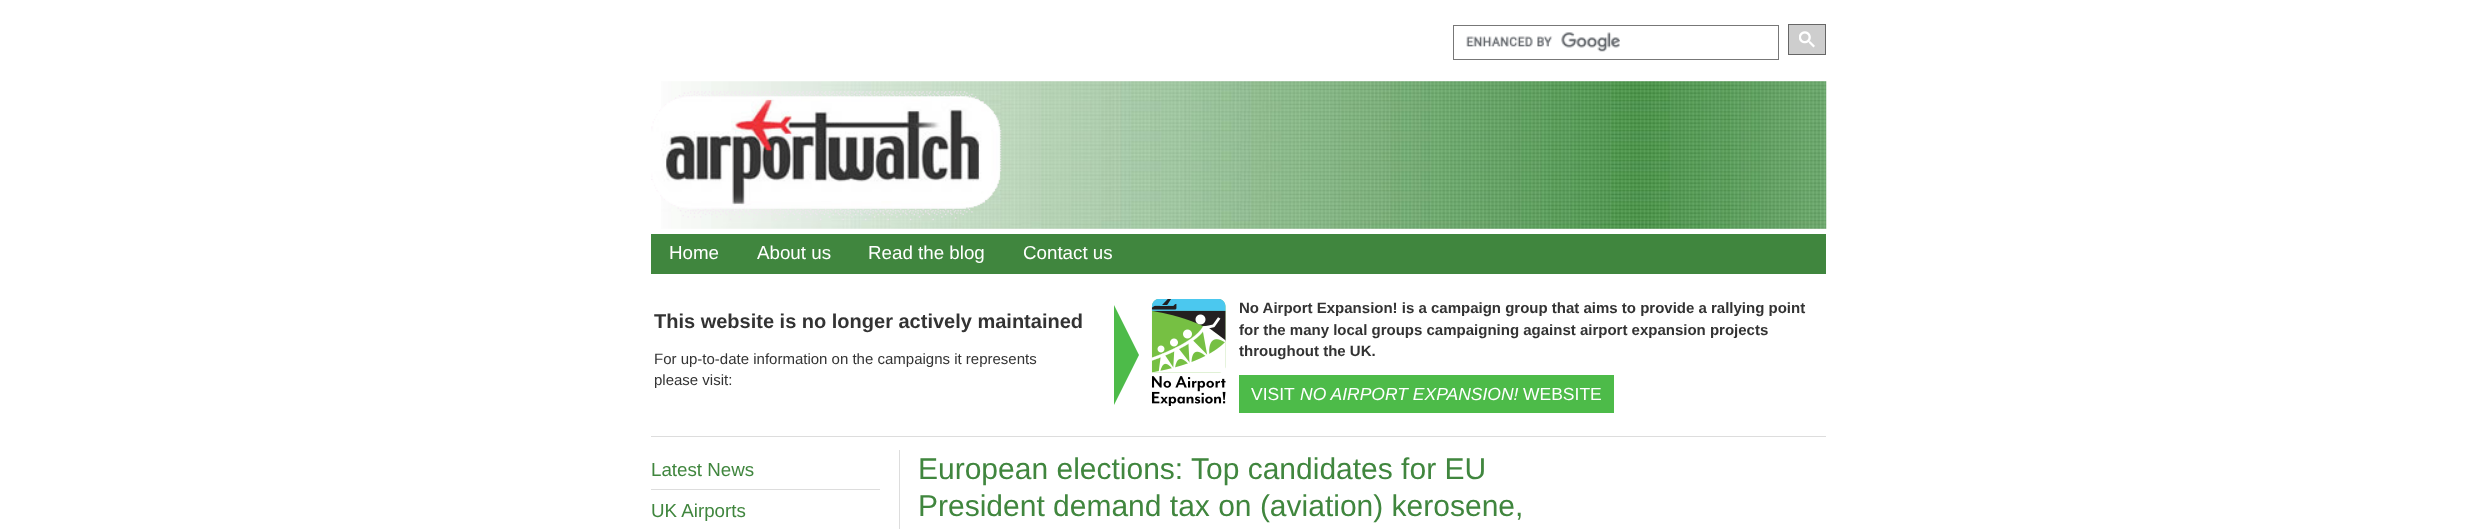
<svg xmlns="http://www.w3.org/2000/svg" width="2476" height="529">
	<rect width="100%" height="100%" fill="#FFFFFF" />
	<image x="1466" y="32" width="154" height="20" href="assets/img1.png" />
	<rect x="1453.5" y="25.5" width="325" height="34" fill="none" stroke="#777777" />
	<rect x="1788.5" y="24.5" width="37" height="30" fill="#CECECE" stroke="#666666" />
	<image x="1799" y="31" width="16" height="17" href="assets/img2.png" />
	<image x="661" y="81" width="1166" height="148" href="assets/img3.png" />
	<image x="651" y="91" width="351" height="130" href="assets/img4.png" />
	<rect x="651" y="234" width="1175" height="40" fill="#40863E" />
	<g font-family="Liberation Sans" font-size="18.75" fill="#FFFFFF">
		<text x="669" y="259">Home</text>
		<text x="757" y="259">About us</text>
		<text x="868" y="259">Read the blog</text>
		<text x="1023" y="259">Contact us</text>
	</g>
	<text x="654" y="328" font-family="Liberation Sans" font-size="20" font-weight="700" fill="#333333">This website is no longer actively maintained</text>
	<g font-family="Liberation Sans" font-size="15" fill="#333333">
		<text x="654" y="364">For up-to-date information on the campaigns it represents</text>
		<text x="654" y="385">please visit:</text>
	</g>
	<path d="M1114 305L1139 355L1114 405Z" fill="#4DBB49" />
	<image x="1151" y="299" width="75" height="107" href="assets/img5.png" />
	<g font-family="Liberation Sans" font-size="15" font-weight="700" fill="#333333">
		<text x="1239" y="313">No Airport Expansion! is a campaign group that aims to provide a rallying point</text>
		<text x="1239" y="335">for the many local groups campaigning against airport expansion projects</text>
		<text x="1239" y="356">throughout the UK.</text>
	</g>
	<rect x="1239" y="375" width="375" height="38" fill="#4DBB49" />
	<text x="1251" y="400" font-family="Liberation Sans" font-size="17.5" fill="#FFFFFF">VISIT</text>
	<text x="1300" y="400" font-family="Liberation Sans" font-size="17.5" font-style="italic" fill="#FFFFFF">NO AIRPORT EXPANSION!</text>
	<text x="1523" y="400" font-family="Liberation Sans" font-size="17.5" fill="#FFFFFF">WEBSITE</text>
	<rect x="651" y="436" width="1175" height="1" fill="#DDDDDD" />
	<rect x="899" y="450" width="1" height="79" fill="#DDDDDD" />
	<rect x="651" y="489" width="229" height="1" fill="#DDDDDD" />
	<g font-family="Liberation Sans" font-size="18.75" fill="#40863E">
		<text x="651" y="476">Latest News</text>
		<text x="651" y="517">UK Airports</text>
	</g>
	<g font-family="Liberation Sans" font-size="30" fill="#40863E">
		<text x="918" y="479">European elections: Top candidates for EU</text>
		<text x="918" y="516">President demand tax on (aviation) kerosene,</text>
	</g>
</svg>
